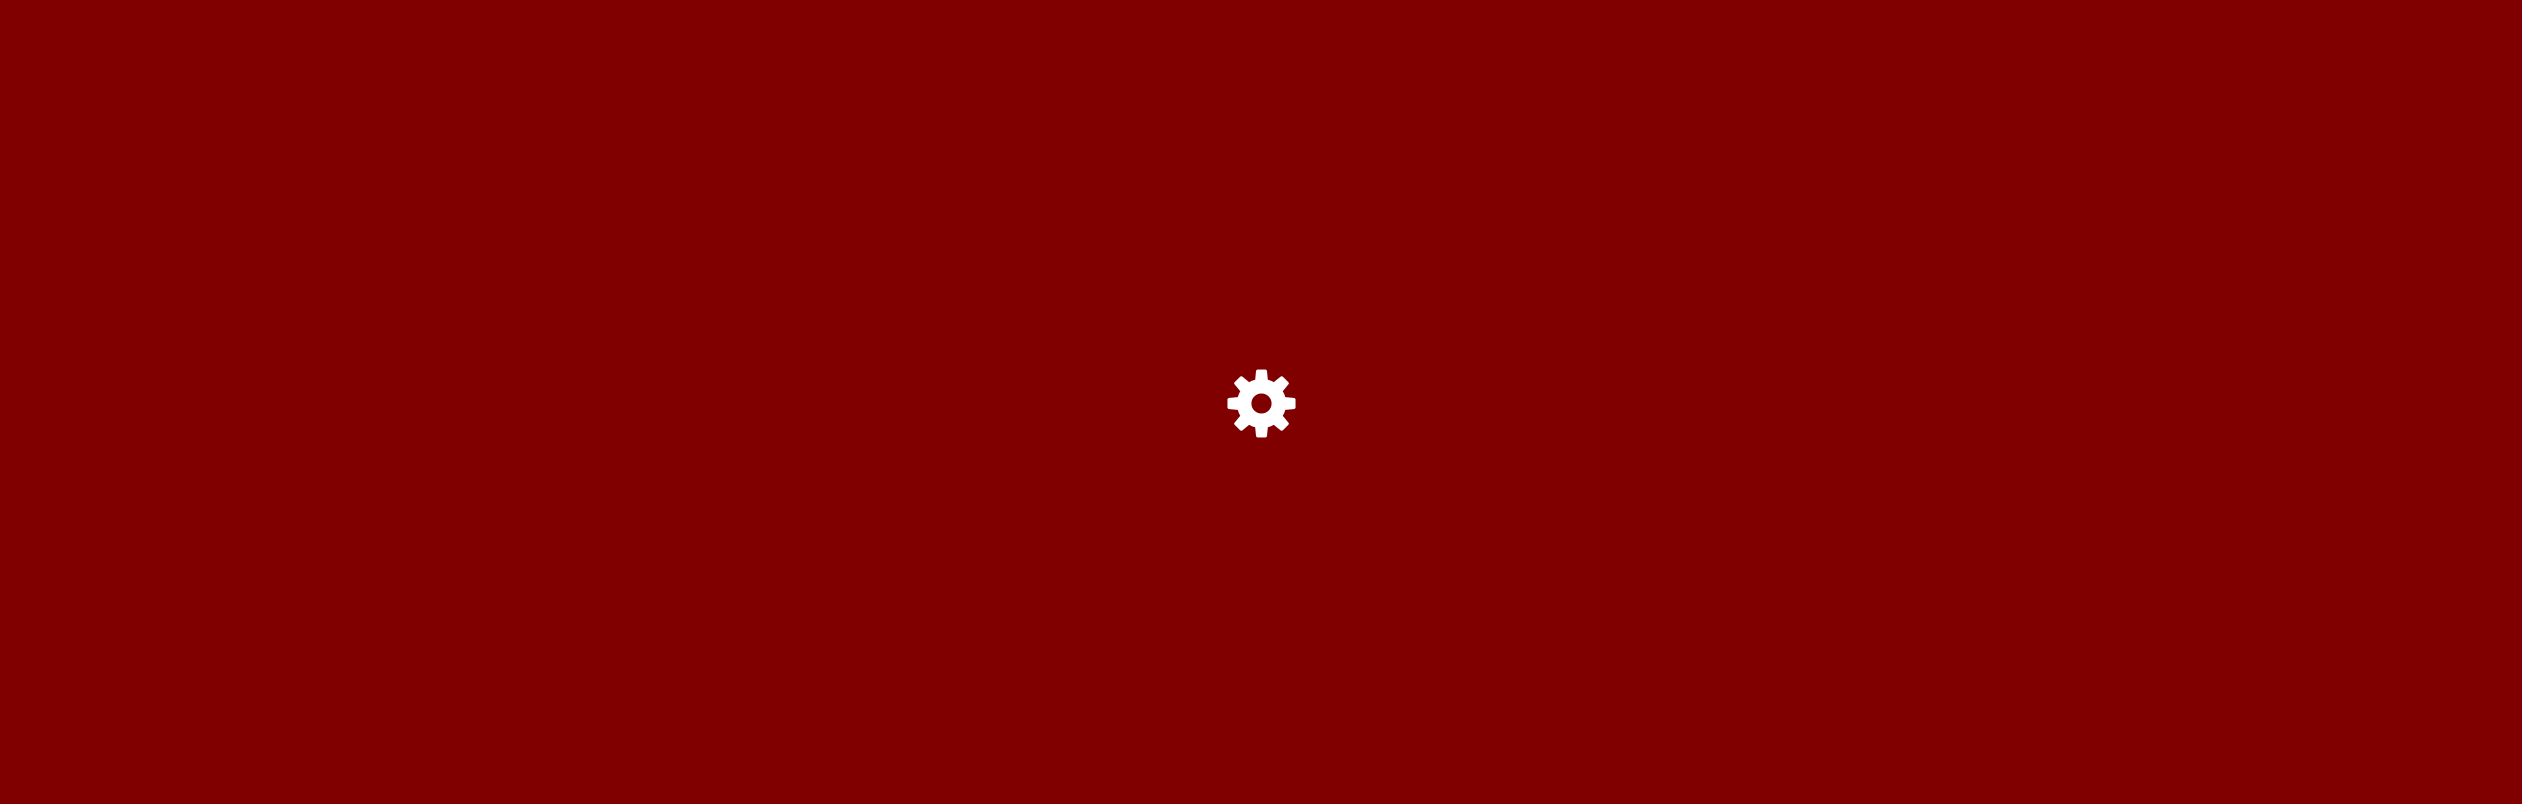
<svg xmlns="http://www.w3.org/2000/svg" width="2522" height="804">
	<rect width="100%" height="100%" fill="#800000" />
	<image x="1227" y="369" width="69" height="69" href="assets/img1.png" />
</svg>
